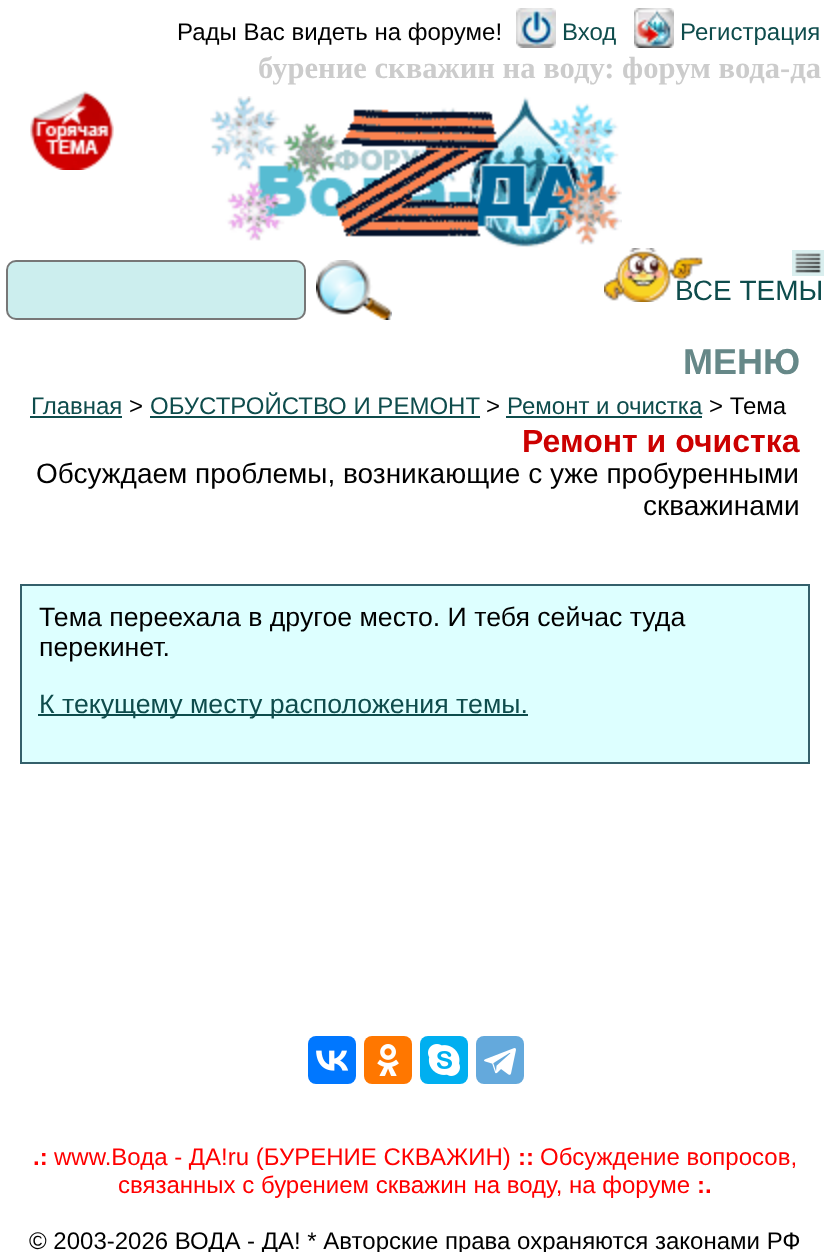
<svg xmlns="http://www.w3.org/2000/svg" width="830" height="1252">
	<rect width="100%" height="100%" fill="#FFFFFF" />
	<text x="177" y="40" font-family="Liberation Sans" font-size="24" fill="#000000">Рады Вас видеть на форуме!</text>
	<image x="516" y="8" width="40" height="40" href="assets/img1.png" />
	<text x="562" y="40" font-family="Liberation Sans" font-size="24" fill="#0E4C4C">Вход</text>
	<image x="634" y="8" width="40" height="40" href="assets/img2.png" />
	<text x="680" y="40" font-family="Liberation Sans" font-size="24" fill="#0E4C4C">Регистрация</text>
	<image x="30" y="91" width="84" height="79" href="assets/img3.png" />
	<image x="210" y="96" width="412" height="152" href="assets/img4.png" />
	<text x="258" y="78" font-family="Liberation Serif" font-size="30.6" font-weight="700" fill="#CCCCCC">бурение скважин на воду: форум вода-да</text>
	<rect x="7" y="261" width="298" height="58" rx="9" fill="#CCEEEE" stroke="#777777" stroke-width="2" />
	<image x="316" y="260" width="76" height="60" href="assets/img5.png" />
	<image x="604" y="248" width="99" height="54" href="assets/img6.png" />
	<image x="792" y="250" width="32" height="26" href="assets/img7.png" />
	<text x="675" y="300" font-family="Liberation Sans" font-size="28" fill="#0E4C4C">ВСЕ ТЕМЫ</text>
	<text x="31" y="414" font-family="Liberation Sans" font-size="24" fill="#0E4C4C">Главная</text>
	<rect x="30" y="416" width="92" height="2" fill="#0E4C4C" />
	<text x="129" y="414" font-family="Liberation Sans" font-size="24" fill="#000000">&gt;</text>
	<text x="150" y="414" font-family="Liberation Sans" font-size="24" fill="#0E4C4C">ОБУСТРОЙСТВО И РЕМОНТ</text>
	<rect x="150" y="416" width="330" height="2" fill="#0E4C4C" />
	<text x="486" y="414" font-family="Liberation Sans" font-size="24" fill="#000000">&gt;</text>
	<text x="507" y="414" font-family="Liberation Sans" font-size="24" fill="#0E4C4C">Ремонт и очистка</text>
	<rect x="506" y="416" width="196" height="2" fill="#0E4C4C" />
	<text x="709" y="414" font-family="Liberation Sans" font-size="24" fill="#000000">&gt; Тема</text>
	<text x="522" y="452" font-family="Liberation Sans" font-size="32" font-weight="700" fill="#CC0000">Ремонт и очистка</text>
	<g font-family="Liberation Sans" font-size="28" fill="#000000">
		<text x="36" y="483">Обсуждаем проблемы, возникающие с уже пробуренными</text>
		<text x="643" y="515">скважинами</text>
	</g>
	<rect x="21" y="585" width="788" height="178" fill="#DDFFFF" stroke="#34606B" stroke-width="2" />
	<g font-family="Liberation Sans" font-size="26.7" fill="#000000">
		<text x="39" y="626">Тема переехала в другое место. И тебя сейчас туда</text>
		<text x="39" y="656">перекинет.</text>
	</g>
	<rect x="38" y="714" width="490" height="2" fill="#0E4C4C" />
	<text x="39" y="713" font-family="Liberation Sans" font-size="26.7" fill="#0E4C4C">К текущему месту расположения темы.</text>
	<rect x="308" y="1036" width="48" height="48" rx="8" fill="#0077FF" />
	<image x="316" y="1050" width="33" height="21" href="assets/img8.png" />
	<rect x="364" y="1036" width="48" height="48" rx="8" fill="#FF7700" />
	<image x="377" y="1044" width="22" height="32" href="assets/img9.png" />
	<rect x="420" y="1036" width="48" height="48" rx="8" fill="#00AFF0" />
	<image x="428" y="1044" width="32" height="32" href="assets/img10.png" />
	<rect x="476" y="1036" width="48" height="48" rx="8" fill="#64A9DC" />
	<image x="484" y="1048" width="32" height="27" href="assets/img11.png" />
	<text x="33" y="1165" font-family="Liberation Sans" font-size="24" font-weight="700" fill="#FF0000">.:</text>
	<text x="54" y="1165" font-family="Liberation Sans" font-size="24" fill="#FF0000">www.Вода - ДА!ru (БУРЕНИЕ СКВАЖИН)</text>
	<text x="518" y="1165" font-family="Liberation Sans" font-size="24" font-weight="700" fill="#FF0000">::</text>
	<g font-family="Liberation Sans" font-size="24" fill="#FF0000">
		<text x="540" y="1165">Обсуждение вопросов,</text>
		<text x="118" y="1193">связанных с бурением скважин на воду, на форуме</text>
	</g>
	<text x="697" y="1193" font-family="Liberation Sans" font-size="24" font-weight="700" fill="#FF0000">:.</text>
	<text x="29" y="1249" font-family="Liberation Sans" font-size="24" fill="#000000">© 2003-2026 ВОДА - ДА! * Авторские права охраняются законами РФ</text>
	<text x="683" y="374" font-family="Liberation Sans" font-size="36" font-weight="700" fill="#668888">МЕНЮ</text>
</svg>
